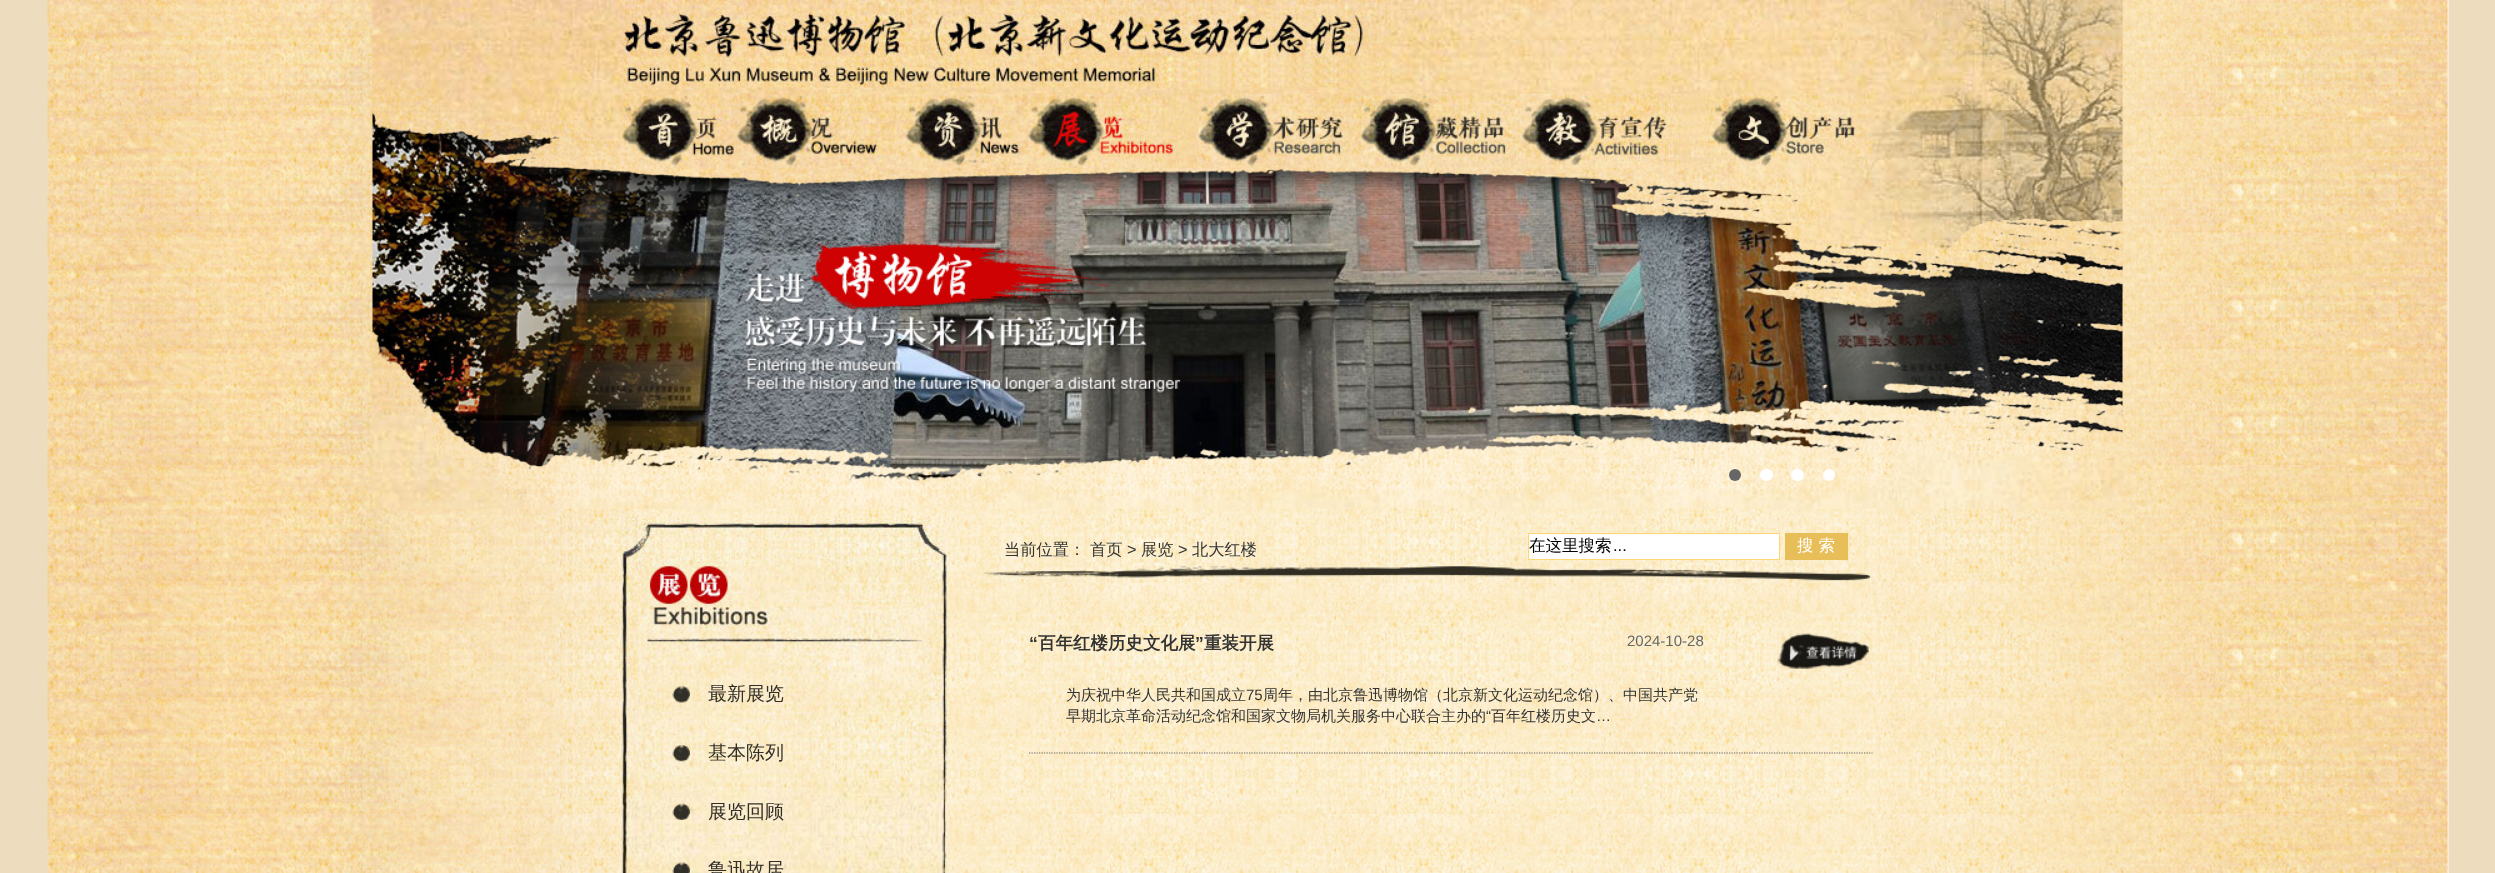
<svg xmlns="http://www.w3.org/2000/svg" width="2495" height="873">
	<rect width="100%" height="100%" fill="#EDDCBD" />
	<image x="47" y="0" width="2402" height="873" href="assets/img1.png" />
	<image x="372" y="0" width="1751" height="495" href="assets/img2.png" />
	<image x="372" y="0" width="1751" height="509" href="assets/img3.png" />
	<circle cx="1735" cy="475" r="6" fill="#666666" />
	<rect x="1760" y="469" width="13" height="12" rx="6" fill="#FFFFFF" />
	<rect x="1791" y="469" width="13" height="12" rx="6" fill="#FFFFFF" />
	<circle cx="1829" cy="475" r="6" fill="#FFFFFF" />
	<image x="622" y="0" width="768" height="89" href="assets/img4.png" />
	<image x="622" y="93" width="116" height="75" href="assets/img5.png" />
	<image x="737" y="93" width="170" height="75" href="assets/img6.png" />
	<image x="906" y="93" width="123" height="75" href="assets/img7.png" />
	<image x="1028" y="93" width="171" height="75" href="assets/img8.png" />
	<image x="1028" y="93" width="171" height="75" href="assets/img9.png" />
	<image x="1198" y="93" width="164" height="75" href="assets/img10.png" />
	<image x="1361" y="93" width="162" height="75" href="assets/img11.png" />
	<image x="1522" y="93" width="190" height="75" href="assets/img12.png" />
	<image x="1711" y="93" width="161" height="75" href="assets/img13.png" />
	<image x="980" y="562" width="893" height="21" href="assets/img14.png" />
	<g font-family="WenQuanYi Zen Hei" font-size="16.25" font-weight="500" fill="#333333">
		<text x="1004" y="555">当前位置：</text>
		<text x="1090" y="555">首页</text>
	</g>
	<text x="1127" y="555" font-family="Liberation Sans" font-size="16.25" fill="#333333">&gt;</text>
	<text x="1141" y="555" font-family="WenQuanYi Zen Hei" font-size="16.25" font-weight="500" fill="#333333">展览</text>
	<text x="1178" y="555" font-family="Liberation Sans" font-size="16.25" fill="#333333">&gt;</text>
	<text x="1192" y="555" font-family="WenQuanYi Zen Hei" font-size="16.25" font-weight="500" fill="#333333">北大红楼</text>
	<rect x="1528.5" y="533.5" width="251" height="26" fill="#FFFFFF" stroke="#FFD672" />
	<text x="1529" y="551" font-family="WenQuanYi Zen Hei" font-size="16.5" font-weight="500" fill="#000000">在这里搜索</text>
	<text x="1613" y="551" font-family="Liberation Sans" font-size="16.5" fill="#000000">...</text>
	<rect x="1785" y="533" width="63" height="27" fill="#E8BE58" />
	<text x="1797" y="551" font-family="WenQuanYi Zen Hei" font-size="16.5" font-weight="500" fill="#FFFFFF">搜 索</text>
	<path d="M1029 753H1872.5" fill="none" stroke="#666666" stroke-width="1.2" stroke-dasharray="1.25 1.25" />
	<text x="1029" y="649" font-family="Liberation Sans" font-size="17.5" font-weight="700" fill="#333333">“</text>
	<text x="1038" y="649" font-family="WenQuanYi Zen Hei" font-size="17.5" font-weight="700" fill="#333333">百年红楼历史文化展</text>
	<text x="1195" y="649" font-family="Liberation Sans" font-size="17.5" font-weight="700" fill="#333333">”</text>
	<text x="1204" y="649" font-family="WenQuanYi Zen Hei" font-size="17.5" font-weight="700" fill="#333333">重装开展</text>
	<text x="1627" y="646" font-family="Liberation Sans" font-size="15" fill="#666666">2024-10-28</text>
	<text x="1066" y="700" font-family="WenQuanYi Zen Hei" font-size="15" font-weight="500" fill="#333333">为庆祝中华人民共和国成立</text>
	<text x="1246" y="700" font-family="Liberation Sans" font-size="15" fill="#333333">75</text>
	<g font-family="WenQuanYi Zen Hei" font-size="15" font-weight="500" fill="#333333">
		<text x="1263" y="700">周年，由北京鲁迅博物馆（北京新文化运动纪念馆）、中国共产党</text>
		<text x="1066" y="721">早期北京革命活动纪念馆和国家文物局机关服务中心联合主办的</text>
	</g>
	<text x="1486" y="721" font-family="Liberation Sans" font-size="15" fill="#333333">“</text>
	<text x="1491" y="721" font-family="WenQuanYi Zen Hei" font-size="15" font-weight="500" fill="#333333">百年红楼历史文</text>
	<text x="1596" y="721" font-family="Liberation Sans" font-size="15" fill="#333333">…</text>
	<image x="1777" y="632" width="96" height="38" href="assets/img15.png" />
	<image x="622" y="520" width="326" height="353" href="assets/img16.png" />
	<image x="672" y="686" width="18" height="17" href="assets/img17.png" />
	<text x="708" y="700" font-family="WenQuanYi Zen Hei" font-size="19" font-weight="500" fill="#322F29">最新展览</text>
	<image x="672" y="745" width="18" height="17" href="assets/img18.png" />
	<text x="708" y="759" font-family="WenQuanYi Zen Hei" font-size="19" font-weight="500" fill="#322F29">基本陈列</text>
	<image x="672" y="803" width="18" height="17" href="assets/img19.png" />
	<text x="708" y="818" font-family="WenQuanYi Zen Hei" font-size="19" font-weight="500" fill="#322F29">展览回顾</text>
	<image x="672" y="862" width="18" height="11" href="assets/img20.png" />
	<text x="708" y="876" font-family="WenQuanYi Zen Hei" font-size="19" font-weight="500" fill="#322F29">鲁迅故居</text>
</svg>
